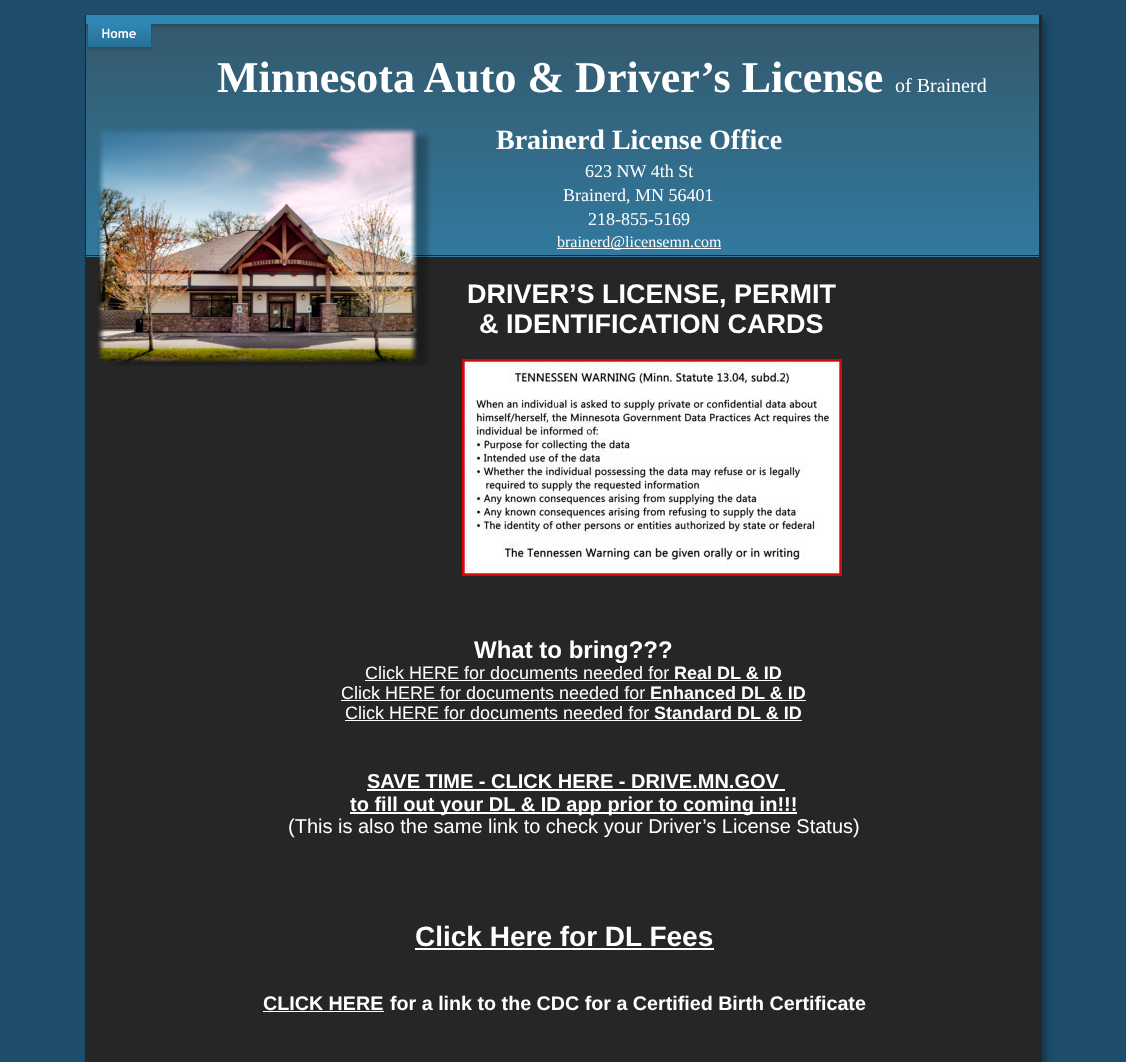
<svg xmlns="http://www.w3.org/2000/svg" width="1126" height="1062">
	<rect width="100%" height="100%" fill="#1D4C6C" />
	<rect x="90" y="20" width="957" height="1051" fill="#000000" fill-opacity="0.25" filter="blur(3px)" />
	<rect x="85" y="15" width="957" height="1047" fill="#262626" />
	<image x="86" y="15" width="953" height="242" href="assets/img2.png" />
	<image x="87" y="24" width="65" height="27" href="assets/img1.png" />
	<text x="217" y="92" font-family="Liberation Serif" font-size="44" font-weight="700" fill="#FFFFFF">Minnesota Auto &amp; Driver’s License</text>
	<text x="895" y="92" font-family="Liberation Serif" font-size="20" fill="#FFFFFF">of Brainerd</text>
	<image x="267" y="356" width="14" height="5" href="assets/img4.png" />
	<image x="97" y="127" width="334" height="239" href="assets/img3.png" />
	<text x="496" y="149" font-family="Liberation Serif" font-size="28" font-weight="700" fill="#FFFFFF">Brainerd License Office</text>
	<g font-family="Liberation Serif" font-size="18" fill="#FFFFFF">
		<text x="585" y="177">623 NW 4th St</text>
		<text x="563" y="201">Brainerd, MN 56401</text>
		<text x="588" y="225">218-855-5169</text>
	</g>
	<rect x="557" y="248" width="164" height="1" fill="#FFFFFF" />
	<text x="557" y="247" font-family="Liberation Serif" font-size="16" fill="#FFFFFF">brainerd@licensemn.com</text>
	<g font-family="Liberation Sans" font-size="27" font-weight="700" fill="#FFFFFF">
		<text x="467" y="303">DRIVER’S LICENSE, PERMIT</text>
		<text x="479" y="333">&amp; IDENTIFICATION CARDS</text>
	</g>
	<image x="462" y="359" width="380" height="217" href="assets/img5.png" />
	<text x="474" y="658" font-family="Liberation Sans" font-size="24" font-weight="700" fill="#FFFFFF">What to bring???</text>
	<text x="365" y="679" font-family="Liberation Sans" font-size="18" fill="#FFFFFF">Click HERE for documents needed for</text>
	<rect x="365" y="680" width="417" height="1" fill="#FFFFFF" />
	<text x="674" y="679" font-family="Liberation Sans" font-size="18" font-weight="700" fill="#FFFFFF">Real DL &amp; ID</text>
	<text x="341" y="699" font-family="Liberation Sans" font-size="18" fill="#FFFFFF">Click HERE for documents needed for</text>
	<rect x="341" y="700" width="465" height="1" fill="#FFFFFF" />
	<text x="650" y="699" font-family="Liberation Sans" font-size="18" font-weight="700" fill="#FFFFFF">Enhanced DL &amp; ID</text>
	<text x="345" y="719" font-family="Liberation Sans" font-size="18" fill="#FFFFFF">Click HERE for documents needed for</text>
	<rect x="345" y="720" width="457" height="1" fill="#FFFFFF" />
	<text x="654" y="719" font-family="Liberation Sans" font-size="18" font-weight="700" fill="#FFFFFF">Standard DL &amp; ID</text>
	<text x="367" y="788" font-family="Liberation Sans" font-size="20" font-weight="700" fill="#FFFFFF">SAVE TIME - CLICK HERE - DRIVE.MN.GOV</text>
	<rect x="367" y="789" width="418" height="2" fill="#FFFFFF" />
	<rect x="350" y="812" width="447" height="2" fill="#FFFFFF" />
	<text x="350" y="811" font-family="Liberation Sans" font-size="20" font-weight="700" fill="#FFFFFF">to fill out your DL &amp; ID app prior to coming in!!!</text>
	<text x="288" y="833" font-family="Liberation Sans" font-size="20" fill="#FFFFFF">(This is also the same link to check your Driver’s License Status)</text>
	<text x="415" y="946" font-family="Liberation Sans" font-size="28" font-weight="700" fill="#FFFFFF">Click Here for DL Fees</text>
	<rect x="415" y="948" width="299" height="2" fill="#FFFFFF" />
	<text x="263" y="1010" font-family="Liberation Sans" font-size="19.7" font-weight="700" fill="#FFFFFF">CLICK HERE</text>
	<rect x="263" y="1011" width="121" height="1" fill="#FFFFFF" />
	<text x="390" y="1010" font-family="Liberation Sans" font-size="19.7" font-weight="700" fill="#FFFFFF">for a link to the CDC for a Certified Birth Certificate</text>
</svg>
